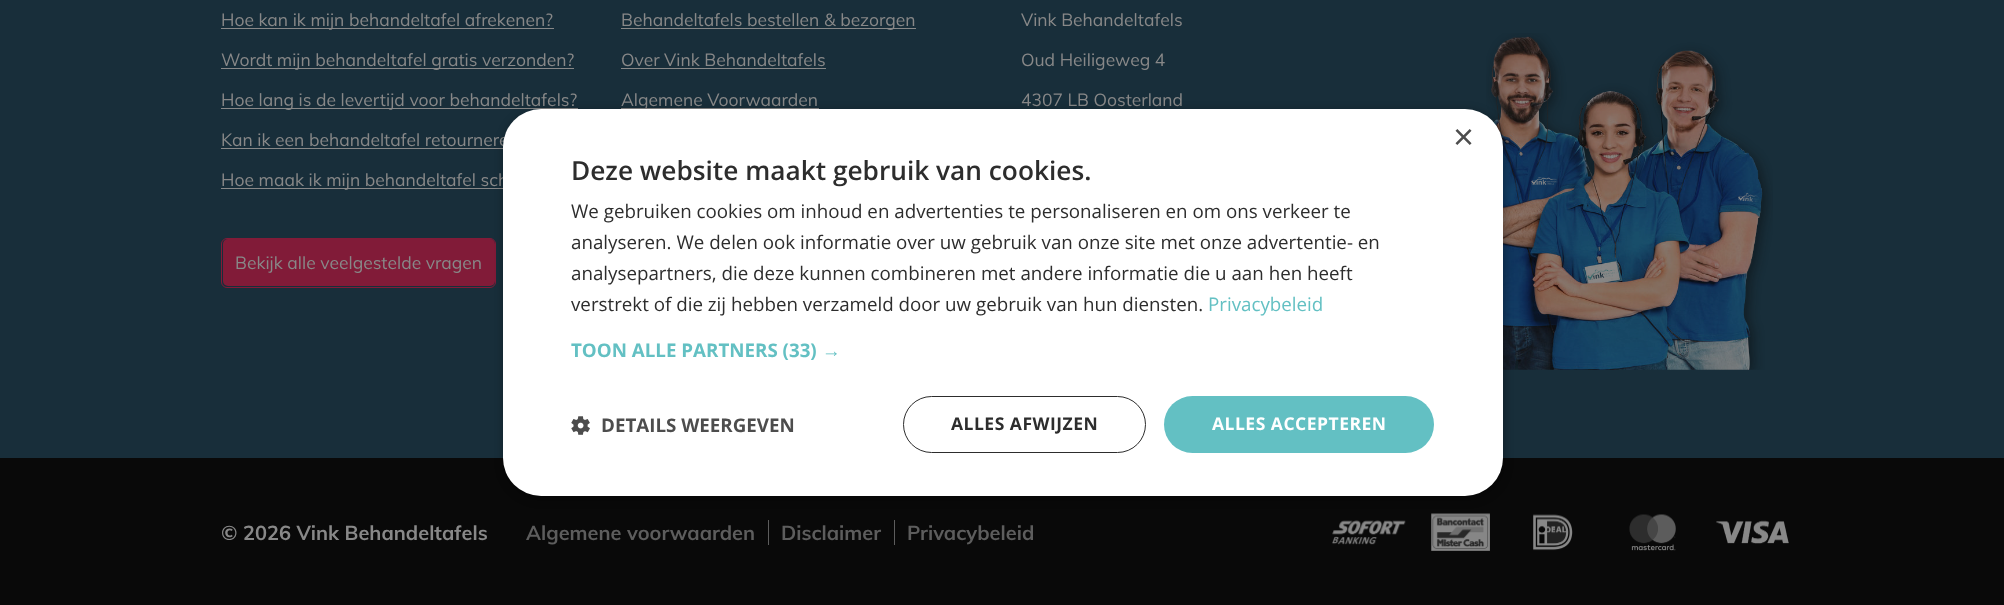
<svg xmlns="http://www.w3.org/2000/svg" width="2004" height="605">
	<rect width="100%" height="100%" fill="#182E3A" />
	<rect x="221" y="28" width="333" height="1" fill="#888888" />
	<text x="221" y="26" font-family="Muli" font-size="17.5" fill="#888888">Hoe kan ik mijn behandeltafel afrekenen?</text>
	<rect x="221" y="68" width="353" height="1" fill="#888888" />
	<text x="221" y="66" font-family="Muli" font-size="17.5" fill="#888888">Wordt mijn behandeltafel gratis verzonden?</text>
	<rect x="221" y="108" width="357" height="1" fill="#888888" />
	<g font-family="Muli" font-size="17.5" fill="#888888">
		<text x="221" y="106">Hoe lang is de levertijd voor behandeltafels?</text>
		<text x="221" y="146">Kan ik een behandeltafel retournere</text>
	</g>
	<rect x="221" y="148" width="282" height="1" fill="#888888" />
	<rect x="221" y="188" width="282" height="1" fill="#888888" />
	<text x="221" y="186" font-family="Muli" font-size="17.5" fill="#888888">Hoe maak ik mijn behandeltafel sch</text>
	<rect x="223" y="239" width="272" height="47" rx="5" fill="#811B38" />
	<rect x="221.5" y="238.5" width="274" height="49" rx="5.5" fill="none" stroke="#811B38" />
	<text x="235" y="269" font-family="Muli" font-size="17.5" fill="#888888">Bekijk alle veelgestelde vragen</text>
	<rect x="621" y="28" width="295" height="1" fill="#888888" />
	<g font-family="Muli" font-size="17.5" fill="#888888">
		<text x="621" y="26">Behandeltafels bestellen &amp; bezorgen</text>
		<text x="621" y="66">Over Vink Behandeltafels</text>
	</g>
	<rect x="621" y="68" width="205" height="1" fill="#888888" />
	<rect x="621" y="108" width="198" height="1" fill="#888888" />
	<g font-family="Muli" font-size="17.5" fill="#888888">
		<text x="621" y="106">Algemene Voorwaarden</text>
		<text x="1021" y="26">Vink Behandeltafels</text>
		<text x="1021" y="66">Oud Heiligeweg 4</text>
		<text x="1021" y="106">4307 LB Oosterland</text>
	</g>
	<image x="1486" y="33" width="287" height="337" href="assets/img1.png" />
	<rect x="0" y="458" width="2004" height="147" fill="#090909" />
	<text x="221" y="540" font-family="Muli" font-size="20" font-weight="700" fill="#888888">© 2026 Vink Behandeltafels</text>
	<text x="526" y="540" font-family="Muli" font-size="20" font-weight="700" fill="#5D5D5D">Algemene voorwaarden</text>
	<rect x="768" y="520" width="1" height="25" fill="#5D5D5D" />
	<text x="781" y="540" font-family="Muli" font-size="20" font-weight="700" fill="#5D5D5D">Disclaimer</text>
	<rect x="894" y="520" width="1" height="25" fill="#5D5D5D" />
	<text x="907" y="540" font-family="Muli" font-size="20" font-weight="700" fill="#5D5D5D">Privacybeleid</text>
	<image x="1332" y="520" width="74" height="25" href="assets/img2.png" />
	<image x="1431" y="513" width="59" height="38" href="assets/img3.png" />
	<image x="1533" y="514" width="40" height="37" href="assets/img4.png" />
	<image x="1629" y="514" width="47" height="37" href="assets/img5.png" />
	<image x="1716" y="520" width="73" height="24" href="assets/img6.png" />
	<rect x="504" y="111" width="1000" height="388" rx="38" fill="#000000" fill-opacity="0.35" filter="blur(5px)" />
	<rect x="503" y="109" width="1000" height="387" rx="38" fill="#FFFFFF" />
	<text x="1453" y="149" font-family="Liberation Sans" font-size="36" fill="#4D4D4D">×</text>
	<text x="571" y="180" font-family="Open Sans" font-size="26.25" font-weight="600" fill="#2D2D2D">Deze website maakt gebruik van cookies.</text>
	<g font-family="Open Sans" font-size="18.75" fill="#2D2D2D">
		<text x="571" y="218">We gebruiken cookies om inhoud en advertenties te personaliseren en om ons verkeer te</text>
		<text x="571" y="249">analyseren. We delen ook informatie over uw gebruik van onze site met onze advertentie- en</text>
		<text x="571" y="280">analysepartners, die deze kunnen combineren met andere informatie die u aan hen heeft</text>
		<text x="571" y="311">verstrekt of die zij hebben verzameld door uw gebruik van hun diensten.</text>
	</g>
	<text x="1208" y="311" font-family="Open Sans" font-size="18.75" fill="#63C0C3">Privacybeleid</text>
	<text x="571" y="357" font-family="Open Sans" font-size="18.75" font-weight="700" fill="#63C0C3">TOON ALLE PARTNERS (33)</text>
	<text x="822" y="357" font-family="Liberation Sans" font-size="18.75" font-weight="700" fill="#63C0C3">→</text>
	<image x="571" y="416" width="19" height="19" href="assets/img7.png" />
	<text x="601" y="432" font-family="Open Sans" font-size="18.75" font-weight="700" fill="#4D4D4D">DETAILS WEERGEVEN</text>
	<rect x="903.5" y="396.5" width="242" height="56" rx="28" fill="none" stroke="#2D2D2D" />
	<text x="951" y="430" font-family="Open Sans" font-size="17.5" font-weight="700" letter-spacing="0.5" fill="#2D2D2D">ALLES AFWIJZEN</text>
	<rect x="1164" y="396" width="270" height="57" rx="28.5" fill="#63C0C3" />
	<text x="1212" y="430" font-family="Open Sans" font-size="17.5" font-weight="700" letter-spacing="0.5" fill="#FFFFFF">ALLES ACCEPTEREN</text>
</svg>
